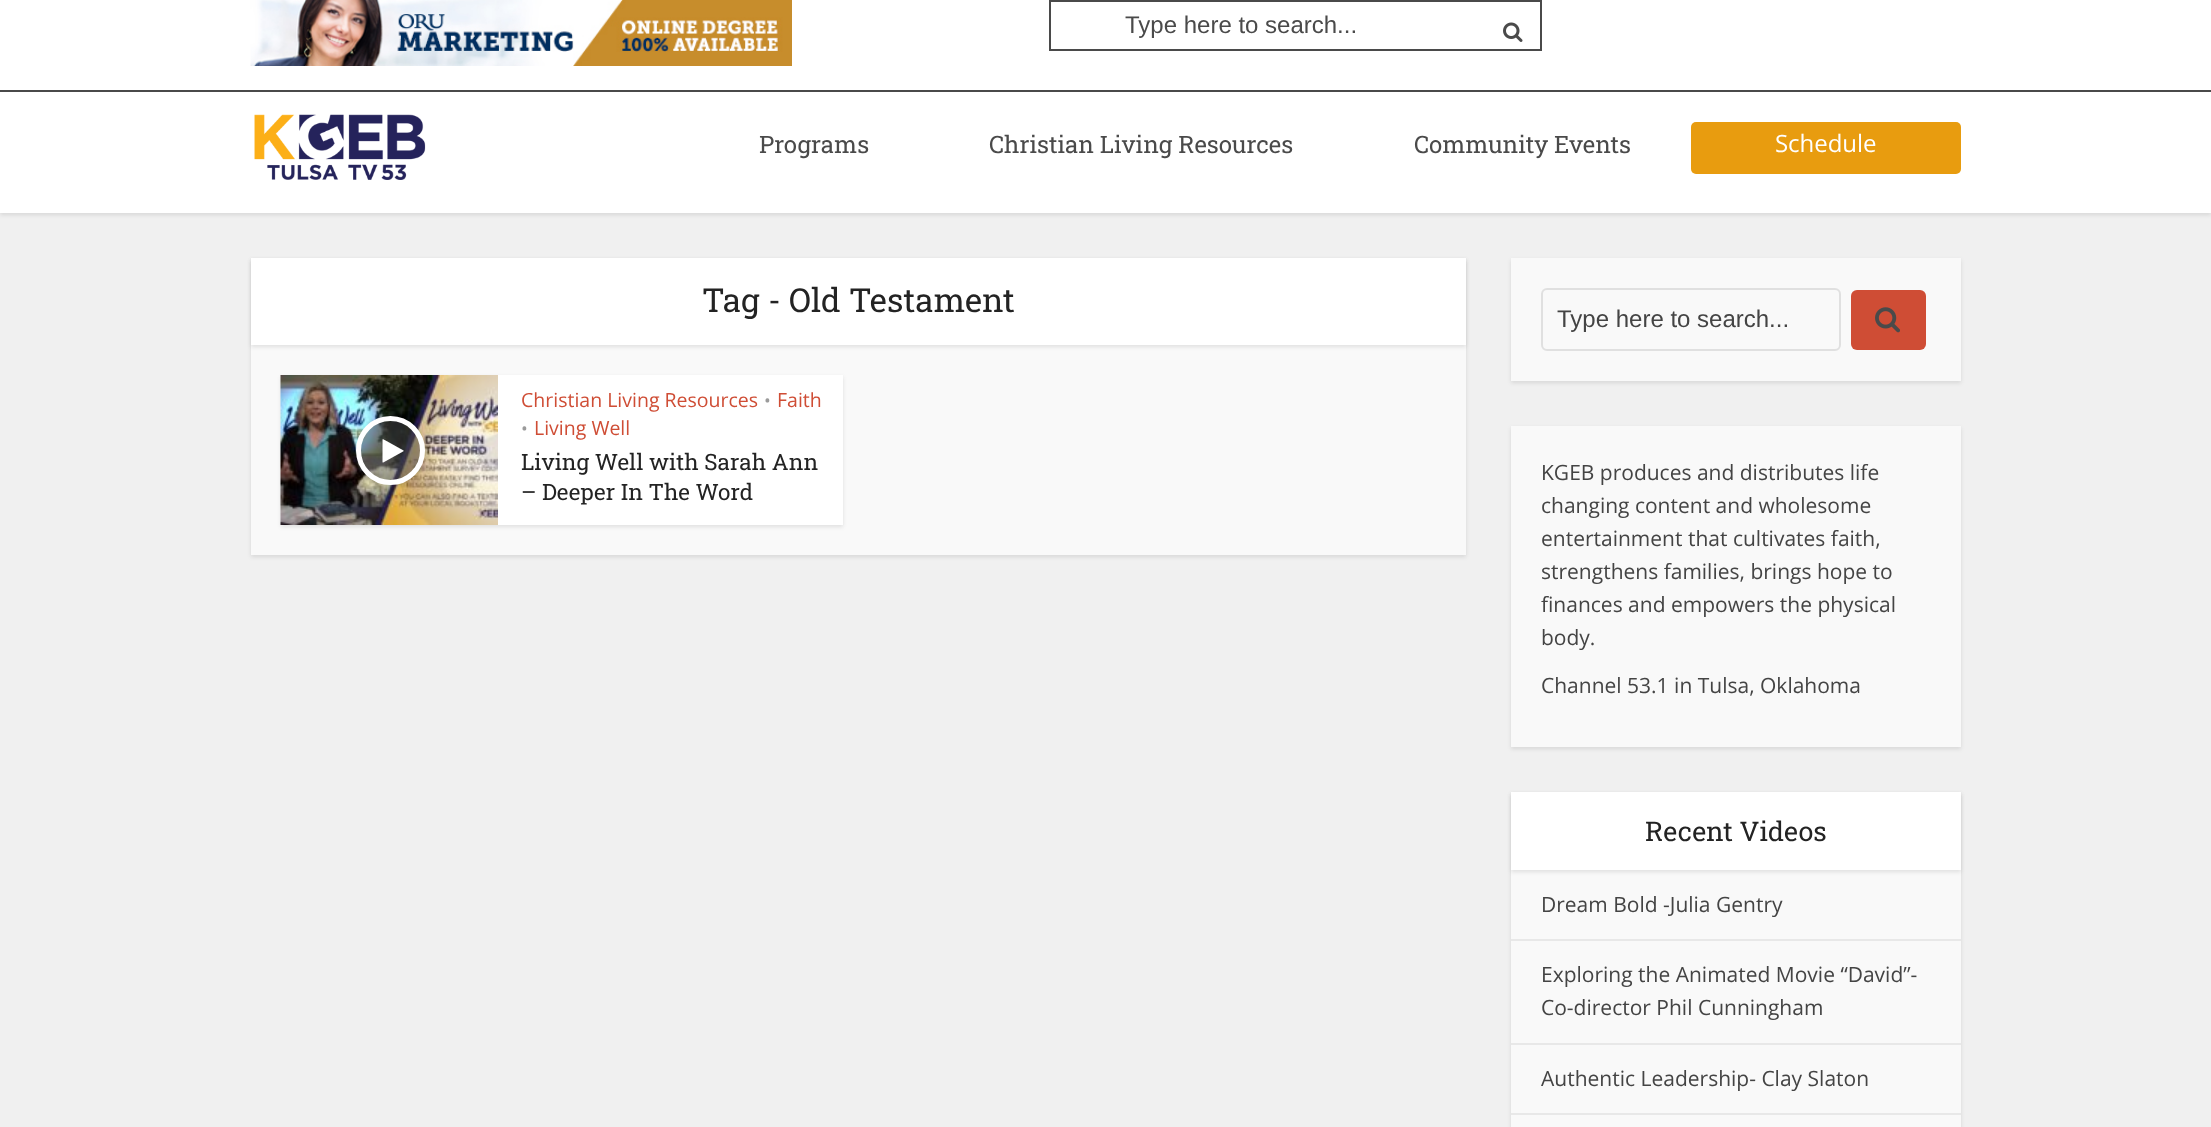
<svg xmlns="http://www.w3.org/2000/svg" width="2211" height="1127">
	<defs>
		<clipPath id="clip1"><path d="M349 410H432V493H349ZM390.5 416C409.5 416 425 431.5 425 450.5C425 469.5 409.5 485 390.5 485C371.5 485 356 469.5 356 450.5C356 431.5 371.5 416 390.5 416Z" clip-rule="evenodd" /></clipPath>
	</defs>
	<rect width="100%" height="100%" fill="#F0F0F0" />
	<rect x="0" y="2" width="2211" height="213" fill="#000000" fill-opacity="0.1" filter="blur(2px)" />
	<rect x="0" y="0" width="2211" height="213" fill="#FFFFFF" />
	<rect x="0" y="90" width="2211" height="2" fill="#4A4A4A" />
	<image x="250" y="0" width="542" height="66" href="assets/img1.png" />
	<rect x="1050" y="1" width="491" height="49" fill="none" stroke="#4A4A4A" stroke-width="2" />
	<text x="1125" y="33" font-family="Liberation Sans" font-size="24" fill="#4A4A4A">Type here to search...</text>
	<image x="1503" y="22" width="20" height="20" href="assets/img2.png" />
	<image x="254" y="114" width="172" height="66" href="assets/img3.png" />
	<g font-family="Roboto Slab" font-size="24" letter-spacing="-0.05" fill="#4A4A4A">
		<text x="759" y="153">Programs</text>
		<text x="989" y="153">Christian Living Resources</text>
		<text x="1414" y="153">Community Events</text>
	</g>
	<rect x="1691" y="122" width="270" height="52" rx="5" fill="#E89C0F" />
	<text x="1775" y="152" font-family="Open Sans" font-size="24" letter-spacing="-0.05" fill="#FFFFFF">Schedule</text>
	<rect x="251" y="260" width="1215" height="297" fill="#000000" fill-opacity="0.1" filter="blur(2px)" />
	<rect x="251" y="345" width="1215" height="210" fill="#F9F9F9" />
	<rect x="251" y="260" width="1215" height="87" fill="#000000" fill-opacity="0.1" filter="blur(2px)" />
	<rect x="251" y="258" width="1215" height="87" fill="#FFFFFF" />
	<text x="702" y="312" font-family="Roboto Slab" font-size="33" fill="#232323">Tag - Old Testament</text>
	<rect x="281" y="377" width="562" height="150" fill="#000000" fill-opacity="0.1" filter="blur(2px)" />
	<rect x="498" y="375" width="345" height="150" fill="#FFFFFF" />
	<image x="280" y="375" width="218" height="150" href="assets/img4.png" />
	<g clip-path="url(#clip1)">
		<rect x="356" y="417" width="69" height="69" rx="34.5" fill="#000000" fill-opacity="0.2" filter="blur(2px)" />
	</g>
	<circle cx="390.5" cy="450.5" r="32" fill="#4A4A4A" fill-opacity="0.5" stroke="#FFFFFF" stroke-width="5" />
	<image x="382" y="439" width="22" height="24" href="assets/img5.png" />
	<text x="521" y="407" font-family="Open Sans" font-size="19.5" fill="#CF4D35">Christian Living Resources</text>
	<text x="764" y="407" font-family="Open Sans" font-size="18" fill="#9B9B9B">•</text>
	<text x="777" y="407" font-family="Open Sans" font-size="19.5" fill="#CF4D35">Faith</text>
	<text x="521" y="435" font-family="Open Sans" font-size="18" fill="#9B9B9B">•</text>
	<text x="534" y="435" font-family="Open Sans" font-size="19.5" fill="#CF4D35">Living Well</text>
	<g font-family="Roboto Slab" font-size="22.5" fill="#232323">
		<text x="521" y="470">Living Well with Sarah Ann</text>
		<text x="521" y="500">– Deeper In The Word</text>
	</g>
	<rect x="1511" y="260" width="450" height="123" fill="#000000" fill-opacity="0.1" filter="blur(2px)" />
	<rect x="1511" y="258" width="450" height="123" fill="#F9F9F9" />
	<rect x="1542" y="289" width="298" height="61" rx="5" fill="none" stroke="#E0E0E0" stroke-width="2" />
	<text x="1557" y="327" font-family="Liberation Sans" font-size="24" fill="#444444">Type here to search...</text>
	<rect x="1851" y="290" width="75" height="60" rx="6" fill="#CF4D35" />
	<image x="1875" y="307" width="25" height="26" href="assets/img6.png" />
	<rect x="1511" y="428" width="450" height="321" fill="#000000" fill-opacity="0.1" filter="blur(2px)" />
	<rect x="1511" y="426" width="450" height="321" fill="#F9F9F9" />
	<g font-family="Open Sans" font-size="21" fill="#444444">
		<text x="1541" y="480">KGEB produces and distributes life</text>
		<text x="1541" y="513">changing content and wholesome</text>
		<text x="1541" y="546">entertainment that cultivates faith,</text>
		<text x="1541" y="579">strengthens families, brings hope to</text>
		<text x="1541" y="612">finances and empowers the physical</text>
		<text x="1541" y="645">body.</text>
		<text x="1541" y="693">Channel 53.1 in Tulsa, Oklahoma</text>
	</g>
	<rect x="1511" y="794" width="450" height="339" fill="#000000" fill-opacity="0.1" filter="blur(2px)" />
	<rect x="1511" y="870" width="450" height="257" fill="#F9F9F9" />
	<rect x="1511" y="794" width="450" height="78" fill="#000000" fill-opacity="0.1" filter="blur(2px)" />
	<rect x="1511" y="792" width="450" height="78" fill="#FFFFFF" />
	<text x="1645" y="841" font-family="Roboto Slab" font-size="27" fill="#232323">Recent Videos</text>
	<rect x="1511" y="939" width="450" height="2" fill="#E8E8E8" />
	<text x="1541" y="912" font-family="Open Sans" font-size="21" fill="#444444">Dream Bold -Julia Gentry</text>
	<rect x="1511" y="1043" width="450" height="2" fill="#E8E8E8" />
	<g font-family="Open Sans" font-size="21" fill="#444444">
		<text x="1541" y="982">Exploring the Animated Movie “David”-</text>
		<text x="1541" y="1015">Co-director Phil Cunningham</text>
	</g>
	<rect x="1511" y="1113" width="450" height="2" fill="#E8E8E8" />
	<text x="1541" y="1086" font-family="Open Sans" font-size="21" fill="#444444">Authentic Leadership- Clay Slaton</text>
</svg>
